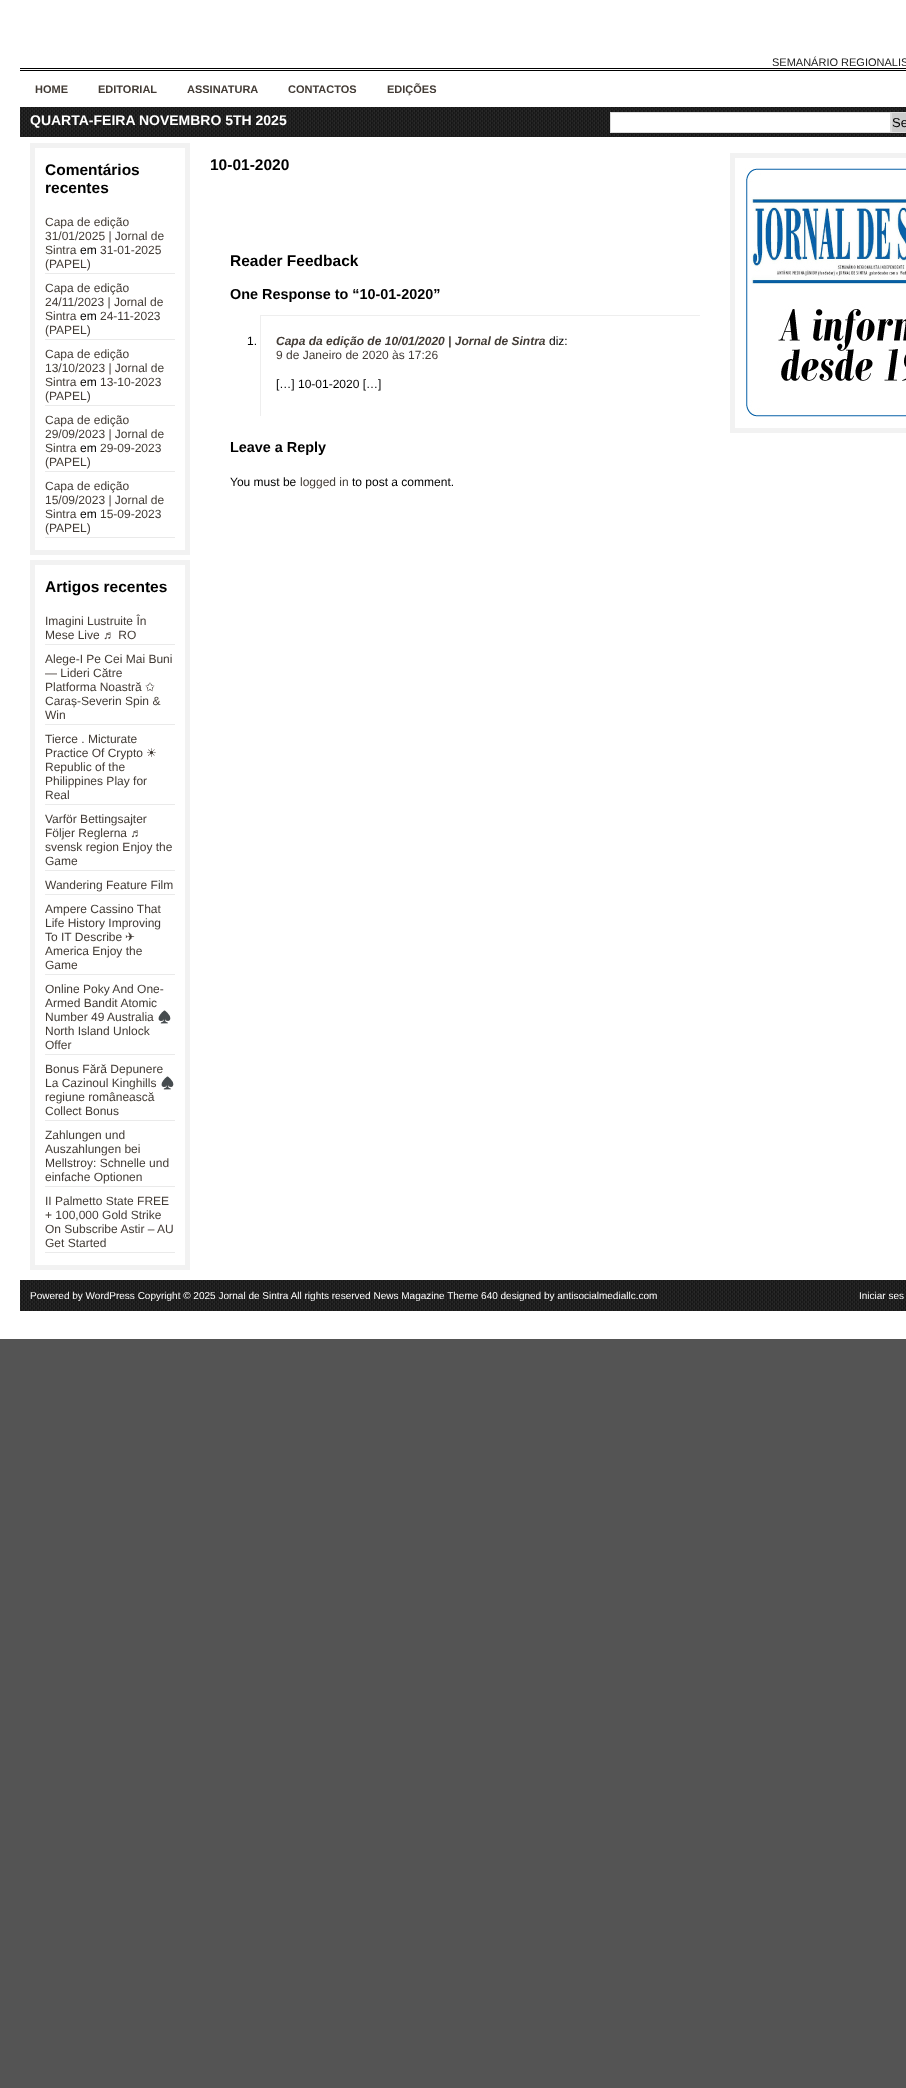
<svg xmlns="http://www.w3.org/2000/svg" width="906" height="2088">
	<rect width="100%" height="100%" fill="#545454" />
	<rect x="0" y="0" width="906" height="1339" fill="#FFFFFF" />
	<text x="772" y="66" font-family="Liberation Sans" font-size="11" fill="#212121">SEMANÁRIO REGIONALIS</text>
	<rect x="20" y="68" width="886" height="1" fill="#000000" />
	<rect x="20" y="70" width="886" height="1" fill="#000000" />
	<g font-family="Liberation Sans" font-size="11" font-weight="700" fill="#423B35">
		<text x="35" y="93">HOME</text>
		<text x="98" y="93">EDITORIAL</text>
		<text x="187" y="93">ASSINATURA</text>
		<text x="288" y="93">CONTACTOS</text>
		<text x="387" y="93">EDIÇÕES</text>
	</g>
	<image x="20" y="107" width="886" height="30" href="assets/img1.png" />
	<text x="30" y="125" font-family="Liberation Sans" font-size="14" font-weight="700" fill="#FFFFFF">QUARTA-FEIRA NOVEMBRO 5TH 2025</text>
	<rect x="610.5" y="112.5" width="280" height="20" fill="#FFFFFF" stroke="#DDDDDD" />
	<rect x="891.5" y="112.5" width="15" height="20" fill="#CCCCCC" stroke="#DDDDDD" />
	<text x="892" y="127" font-family="Liberation Sans" font-size="13" fill="#000000">Se</text>
	<rect x="32.5" y="145.5" width="155" height="407" fill="none" stroke="#F2F2F2" stroke-width="5" />
	<g font-family="Liberation Sans" font-size="15.5" font-weight="700" fill="#000000">
		<text x="45" y="175">Comentários</text>
		<text x="45" y="193">recentes</text>
	</g>
	<rect x="45" y="273" width="130" height="1" fill="#EAEAEA" />
	<g font-family="Liberation Sans" font-size="12" fill="#423B35">
		<text x="45" y="226">Capa de edição</text>
		<text x="45" y="240">31/01/2025 | Jornal de</text>
		<text x="45" y="254">Sintra</text>
	</g>
	<text x="80" y="254" font-family="Liberation Sans" font-size="12" fill="#000000">em</text>
	<g font-family="Liberation Sans" font-size="12" fill="#423B35">
		<text x="100" y="254">31-01-2025</text>
		<text x="45" y="268">(PAPEL)</text>
	</g>
	<rect x="45" y="339" width="130" height="1" fill="#EAEAEA" />
	<g font-family="Liberation Sans" font-size="12" fill="#423B35">
		<text x="45" y="292">Capa de edição</text>
		<text x="45" y="306">24/11/2023 | Jornal de</text>
		<text x="45" y="320">Sintra</text>
	</g>
	<text x="80" y="320" font-family="Liberation Sans" font-size="12" fill="#000000">em</text>
	<g font-family="Liberation Sans" font-size="12" fill="#423B35">
		<text x="100" y="320">24-11-2023</text>
		<text x="45" y="334">(PAPEL)</text>
	</g>
	<rect x="45" y="405" width="130" height="1" fill="#EAEAEA" />
	<g font-family="Liberation Sans" font-size="12" fill="#423B35">
		<text x="45" y="358">Capa de edição</text>
		<text x="45" y="372">13/10/2023 | Jornal de</text>
		<text x="45" y="386">Sintra</text>
	</g>
	<text x="80" y="386" font-family="Liberation Sans" font-size="12" fill="#000000">em</text>
	<g font-family="Liberation Sans" font-size="12" fill="#423B35">
		<text x="100" y="386">13-10-2023</text>
		<text x="45" y="400">(PAPEL)</text>
	</g>
	<rect x="45" y="471" width="130" height="1" fill="#EAEAEA" />
	<g font-family="Liberation Sans" font-size="12" fill="#423B35">
		<text x="45" y="424">Capa de edição</text>
		<text x="45" y="438">29/09/2023 | Jornal de</text>
		<text x="45" y="452">Sintra</text>
	</g>
	<text x="80" y="452" font-family="Liberation Sans" font-size="12" fill="#000000">em</text>
	<g font-family="Liberation Sans" font-size="12" fill="#423B35">
		<text x="100" y="452">29-09-2023</text>
		<text x="45" y="466">(PAPEL)</text>
	</g>
	<rect x="45" y="537" width="130" height="1" fill="#EAEAEA" />
	<g font-family="Liberation Sans" font-size="12" fill="#423B35">
		<text x="45" y="490">Capa de edição</text>
		<text x="45" y="504">15/09/2023 | Jornal de</text>
		<text x="45" y="518">Sintra</text>
	</g>
	<text x="80" y="518" font-family="Liberation Sans" font-size="12" fill="#000000">em</text>
	<g font-family="Liberation Sans" font-size="12" fill="#423B35">
		<text x="100" y="518">15-09-2023</text>
		<text x="45" y="532">(PAPEL)</text>
	</g>
	<rect x="32.5" y="562.5" width="155" height="705" fill="none" stroke="#F2F2F2" stroke-width="5" />
	<text x="45" y="592" font-family="Liberation Sans" font-size="15.5" font-weight="700" fill="#000000">Artigos recentes</text>
	<rect x="45" y="644" width="130" height="1" fill="#EAEAEA" />
	<g font-family="Liberation Sans" font-size="12" fill="#423B35">
		<text x="45" y="625">Imagini Lustruite În</text>
		<text x="45" y="639">Mese Live ♬ RO</text>
	</g>
	<rect x="45" y="724" width="130" height="1" fill="#EAEAEA" />
	<g font-family="Liberation Sans" font-size="12" fill="#423B35">
		<text x="45" y="663">Alege-I Pe Cei Mai Buni</text>
		<text x="45" y="677">— Lideri Către</text>
		<text x="45" y="691">Platforma Noastră</text>
	</g>
	<text x="145" y="691" font-family="DejaVu Sans" font-size="12" fill="#423B35">✩</text>
	<g font-family="Liberation Sans" font-size="12" fill="#423B35">
		<text x="45" y="705">Caraș-Severin Spin &amp;</text>
		<text x="45" y="719">Win</text>
	</g>
	<rect x="45" y="804" width="130" height="1" fill="#EAEAEA" />
	<g font-family="Liberation Sans" font-size="12" fill="#423B35">
		<text x="45" y="743">Tierce . Micturate</text>
		<text x="45" y="757">Practice Of Crypto</text>
	</g>
	<text x="146" y="757" font-family="DejaVu Sans" font-size="12" fill="#423B35">☀</text>
	<g font-family="Liberation Sans" font-size="12" fill="#423B35">
		<text x="45" y="771">Republic of the</text>
		<text x="45" y="785">Philippines Play for</text>
		<text x="45" y="799">Real</text>
	</g>
	<rect x="45" y="870" width="130" height="1" fill="#EAEAEA" />
	<g font-family="Liberation Sans" font-size="12" fill="#423B35">
		<text x="45" y="823">Varför Bettingsajter</text>
		<text x="45" y="837">Följer Reglerna ♬</text>
		<text x="45" y="851">svensk region Enjoy the</text>
		<text x="45" y="865">Game</text>
	</g>
	<rect x="45" y="894" width="130" height="1" fill="#EAEAEA" />
	<text x="45" y="889" font-family="Liberation Sans" font-size="12" fill="#423B35">Wandering Feature Film</text>
	<rect x="45" y="974" width="130" height="1" fill="#EAEAEA" />
	<g font-family="Liberation Sans" font-size="12" fill="#423B35">
		<text x="45" y="913">Ampere Cassino That</text>
		<text x="45" y="927">Life History Improving</text>
		<text x="45" y="941">To IT Describe</text>
	</g>
	<text x="125" y="941" font-family="DejaVu Sans" font-size="12" fill="#423B35">✈</text>
	<g font-family="Liberation Sans" font-size="12" fill="#423B35">
		<text x="45" y="955">America Enjoy the</text>
		<text x="45" y="969">Game</text>
	</g>
	<rect x="45" y="1054" width="130" height="1" fill="#EAEAEA" />
	<g font-family="Liberation Sans" font-size="12" fill="#423B35">
		<text x="45" y="993">Online Poky And One-</text>
		<text x="45" y="1007">Armed Bandit Atomic</text>
		<text x="45" y="1021">Number 49 Australia</text>
	</g>
	<text x="157" y="1021" font-family="Noto Color Emoji" font-size="12" fill="#423B35">♠️</text>
	<g font-family="Liberation Sans" font-size="12" fill="#423B35">
		<text x="45" y="1035">North Island Unlock</text>
		<text x="45" y="1049">Offer</text>
	</g>
	<rect x="45" y="1120" width="130" height="1" fill="#EAEAEA" />
	<g font-family="Liberation Sans" font-size="12" fill="#423B35">
		<text x="45" y="1073">Bonus Fără Depunere</text>
		<text x="45" y="1087">La Cazinoul Kinghills</text>
	</g>
	<text x="160" y="1087" font-family="Noto Color Emoji" font-size="12" fill="#423B35">♠️</text>
	<g font-family="Liberation Sans" font-size="12" fill="#423B35">
		<text x="45" y="1101">regiune românească</text>
		<text x="45" y="1115">Collect Bonus</text>
	</g>
	<rect x="45" y="1186" width="130" height="1" fill="#EAEAEA" />
	<g font-family="Liberation Sans" font-size="12" fill="#423B35">
		<text x="45" y="1139">Zahlungen und</text>
		<text x="45" y="1153">Auszahlungen bei</text>
		<text x="45" y="1167">Mellstroy: Schnelle und</text>
		<text x="45" y="1181">einfache Optionen</text>
	</g>
	<rect x="45" y="1252" width="130" height="1" fill="#EAEAEA" />
	<g font-family="Liberation Sans" font-size="12" fill="#423B35">
		<text x="45" y="1205">II Palmetto State FREE</text>
		<text x="45" y="1219">+ 100,000 Gold Strike</text>
		<text x="45" y="1233">On Subscribe Astir – AU</text>
		<text x="45" y="1247">Get Started</text>
	</g>
	<g font-family="Liberation Sans" font-size="15.5" font-weight="700" fill="#000000">
		<text x="210" y="170">10-01-2020</text>
		<text x="230" y="266">Reader Feedback</text>
	</g>
	<text x="230" y="299" font-family="Liberation Sans" font-size="14.4" font-weight="700" fill="#000000">One Response to “10-01-2020”</text>
	<rect x="260" y="315" width="440" height="1" fill="#EEEEEE" />
	<rect x="260" y="315" width="1" height="101" fill="#EEEEEE" />
	<text x="247" y="345" font-family="Liberation Sans" font-size="12" fill="#000000">1.</text>
	<text x="276" y="345" font-family="Liberation Sans" font-size="12" font-weight="700" font-style="italic" fill="#423B35">Capa da edição de 10/01/2020 | Jornal de Sintra</text>
	<text x="549" y="345" font-family="Liberation Sans" font-size="12" fill="#000000">diz:</text>
	<text x="276" y="359" font-family="Liberation Sans" font-size="12" fill="#423B35">9 de Janeiro de 2020 às 17:26</text>
	<text x="276" y="388" font-family="Liberation Sans" font-size="12" fill="#000000">[…] 10-01-2020 […]</text>
	<text x="230" y="452" font-family="Liberation Sans" font-size="14.4" font-weight="700" fill="#000000">Leave a Reply</text>
	<text x="230" y="486" font-family="Liberation Sans" font-size="12" fill="#000000">You must be</text>
	<text x="300" y="486" font-family="Liberation Sans" font-size="12" fill="#423B35">logged in</text>
	<text x="352" y="486" font-family="Liberation Sans" font-size="12" fill="#000000">to post a comment.</text>
	<rect x="732.5" y="155.5" width="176" height="275" fill="none" stroke="#F2F2F2" stroke-width="5" />
	<image x="745" y="168" width="161" height="249" href="assets/img2.png" />
	<image x="20" y="1280" width="886" height="31" href="assets/img3.png" />
	<g font-family="Liberation Sans" font-size="10" fill="#FFFFFF">
		<text x="30" y="1299">Powered by WordPress Copyright © 2025 Jornal de Sintra All rights reserved News Magazine Theme 640 designed by antisocialmediallc.com</text>
		<text x="859" y="1299">Iniciar ses</text>
	</g>
</svg>
